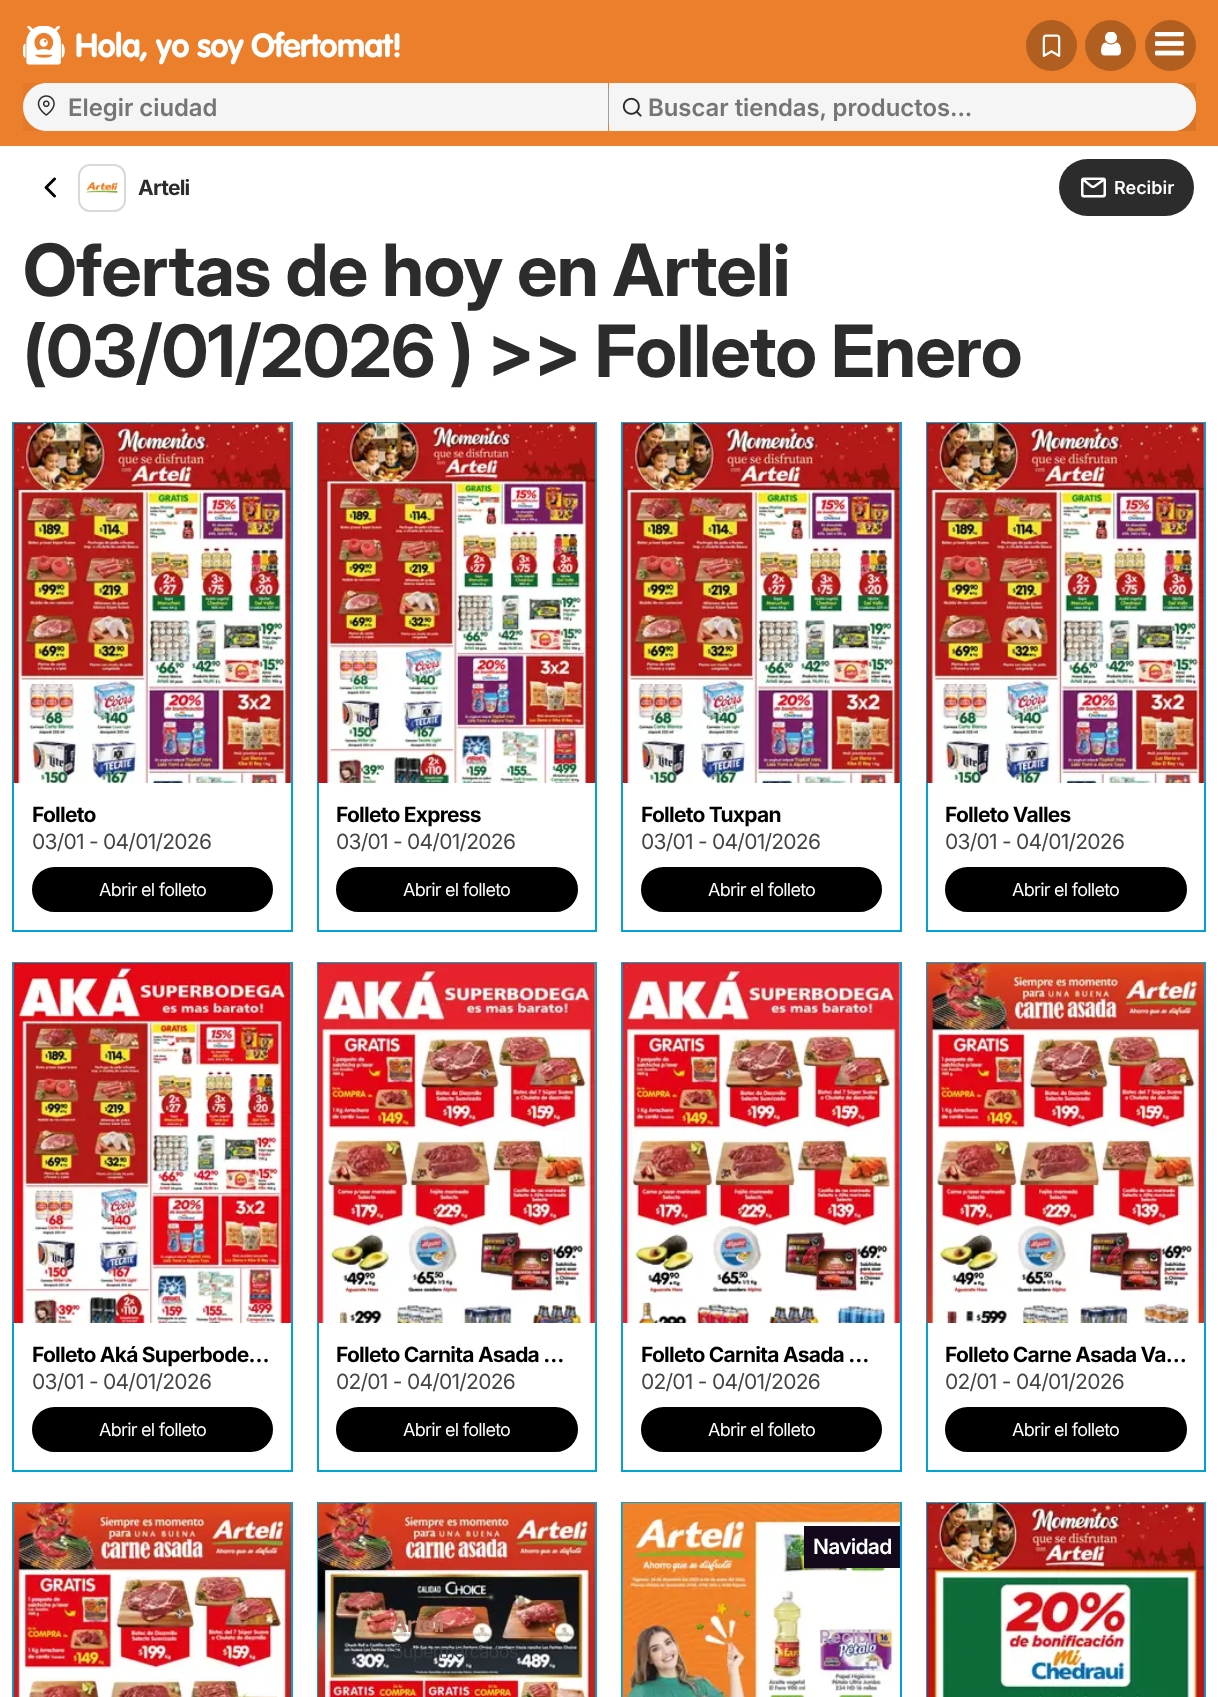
<svg xmlns="http://www.w3.org/2000/svg" width="1218" height="1697">
	<rect width="100%" height="100%" fill="#FFFFFF" />
	<rect x="0" y="0" width="1218" height="146" fill="#EC7F2B" />
	<image x="23" y="26" width="42" height="39" href="assets/img1.png" />
	<text x="75" y="57" font-family="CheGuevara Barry" font-size="33" font-weight="700" letter-spacing="-0.75" fill="#FFFFFF">Hola, yo soy Ofertomat!</text>
	<circle cx="1051.5" cy="45.5" r="25.5" fill="#B15F20" />
	<image x="1042" y="34" width="19" height="23" href="assets/img2.png" />
	<circle cx="1110.5" cy="45.5" r="25.5" fill="#B15F20" />
	<image x="1101" y="32" width="20" height="24" href="assets/img3.png" />
	<circle cx="1170.5" cy="45.5" r="25.5" fill="#B15F20" />
	<image x="1155" y="32" width="29" height="24" href="assets/img4.png" />
	<path d="M47 83H608V131H47C33.5 131 23 120.5 23 107C23 93.5 33.5 83 47 83Z" fill="#FFFFFF" />
	<rect x="23" y="83" width="585" height="48" fill="#000000" fill-opacity="0.04" />
	<image x="37" y="95" width="18" height="21" href="assets/img5.png" />
	<text x="68" y="116" font-family="'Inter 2'" font-size="24" font-weight="600" fill="#757575">Elegir ciudad</text>
	<rect x="608" y="89" width="1" height="36" fill="#9D9D9D" />
	<path d="M609 83H1173C1185.5 83 1196 93.5 1196 106V108C1196 120.5 1185.5 131 1173 131H609Z" fill="#FFFFFF" />
	<rect x="1172" y="83" width="24" height="48" fill="#000000" fill-opacity="0.04" />
	<path d="M609 83H1172C1185.5 83 1196 93.5 1196 107C1196 120.5 1185.5 131 1172 131H609Z" fill="#FFFFFF" />
	<rect x="609" y="83" width="587" height="48" fill="#000000" fill-opacity="0.04" />
	<image x="622" y="97" width="20" height="20" href="assets/img6.png" />
	<text x="648" y="116" font-family="'Inter 2'" font-size="24" font-weight="600" fill="#757575">Buscar tiendas, productos...</text>
	<image x="44" y="177" width="12" height="21" href="assets/img7.png" />
	<rect x="79" y="165" width="46" height="46" rx="11" fill="none" stroke="#D9D9D9" stroke-width="2" />
	<image x="86" y="181" width="32" height="13" href="assets/img8.png" />
	<text x="138" y="195" font-family="Inter" font-size="21" font-weight="700" letter-spacing="-0.75" fill="#2C2C2C">Arteli</text>
	<rect x="1059" y="159" width="135" height="57" rx="28.5" fill="#2C2C2C" />
	<image x="1081" y="177" width="25" height="21" href="assets/img9.png" />
	<text x="1114" y="194" font-family="Inter" font-size="18" font-weight="600" fill="#FFFFFF">Recibir</text>
	<g font-family="'Inter 2'" font-size="72" font-weight="700" letter-spacing="-0.75" fill="#2C2C2C">
		<text x="23" y="296">Ofertas de hoy en Arteli</text>
		<text x="23" y="377">(03/01/2026 ) &gt;&gt; Folleto Enero</text>
	</g>
	<rect x="13" y="423" width="279" height="508" fill="none" stroke="#00A3D1" stroke-width="2" />
	<image x="13" y="423" width="278" height="360" href="assets/img10.png" />
	<text x="32" y="822" font-family="Inter" font-size="21" font-weight="700" letter-spacing="-0.75" fill="#000000">Folleto</text>
	<text x="32" y="849" font-family="Inter" font-size="21" letter-spacing="-0.75" fill="#444444">03/01 - 04/01/2026</text>
	<rect x="33" y="868" width="239" height="43" rx="21.5" fill="#000000" stroke="#000000" stroke-width="2" />
	<text x="99" y="896" font-family="Inter" font-size="18" letter-spacing="-0.75" fill="#FFFFFF">Abrir el folleto</text>
	<rect x="318" y="423" width="278" height="508" fill="none" stroke="#00A3D1" stroke-width="2" />
	<image x="318" y="423" width="278" height="360" href="assets/img11.png" />
	<text x="336" y="822" font-family="Inter" font-size="21" font-weight="700" letter-spacing="-0.75" fill="#000000">Folleto Express</text>
	<text x="336" y="849" font-family="Inter" font-size="21" letter-spacing="-0.75" fill="#444444">03/01 - 04/01/2026</text>
	<rect x="337" y="868" width="240" height="43" rx="21.5" fill="#000000" stroke="#000000" stroke-width="2" />
	<text x="403" y="896" font-family="Inter" font-size="18" letter-spacing="-0.75" fill="#FFFFFF">Abrir el folleto</text>
	<rect x="622" y="423" width="279" height="508" fill="none" stroke="#00A3D1" stroke-width="2" />
	<image x="622" y="423" width="278" height="360" href="assets/img12.png" />
	<text x="641" y="822" font-family="Inter" font-size="21" font-weight="700" letter-spacing="-0.75" fill="#000000">Folleto Tuxpan</text>
	<text x="641" y="849" font-family="Inter" font-size="21" letter-spacing="-0.75" fill="#444444">03/01 - 04/01/2026</text>
	<rect x="642" y="868" width="239" height="43" rx="21.5" fill="#000000" stroke="#000000" stroke-width="2" />
	<text x="708" y="896" font-family="Inter" font-size="18" letter-spacing="-0.75" fill="#FFFFFF">Abrir el folleto</text>
	<rect x="927" y="423" width="278" height="508" fill="none" stroke="#00A3D1" stroke-width="2" />
	<image x="927" y="423" width="278" height="360" href="assets/img13.png" />
	<text x="945" y="822" font-family="Inter" font-size="21" font-weight="700" letter-spacing="-0.75" fill="#000000">Folleto Valles</text>
	<text x="945" y="849" font-family="Inter" font-size="21" letter-spacing="-0.75" fill="#444444">03/01 - 04/01/2026</text>
	<rect x="946" y="868" width="240" height="43" rx="21.5" fill="#000000" stroke="#000000" stroke-width="2" />
	<text x="1012" y="896" font-family="Inter" font-size="18" letter-spacing="-0.75" fill="#FFFFFF">Abrir el folleto</text>
	<rect x="13" y="963" width="279" height="508" fill="none" stroke="#00A3D1" stroke-width="2" />
	<image x="13" y="963" width="278" height="360" href="assets/img14.png" />
	<text x="32" y="1362" font-family="Inter" font-size="21" font-weight="700" letter-spacing="-0.75" fill="#000000">Folleto Aká Superbode…</text>
	<text x="32" y="1389" font-family="Inter" font-size="21" letter-spacing="-0.75" fill="#444444">03/01 - 04/01/2026</text>
	<rect x="33" y="1408" width="239" height="43" rx="21.5" fill="#000000" stroke="#000000" stroke-width="2" />
	<text x="99" y="1436" font-family="Inter" font-size="18" letter-spacing="-0.75" fill="#FFFFFF">Abrir el folleto</text>
	<rect x="318" y="963" width="278" height="508" fill="none" stroke="#00A3D1" stroke-width="2" />
	<image x="318" y="963" width="278" height="360" href="assets/img15.png" />
	<text x="336" y="1362" font-family="Inter" font-size="21" font-weight="700" letter-spacing="-0.75" fill="#000000">Folleto Carnita Asada …</text>
	<text x="336" y="1389" font-family="Inter" font-size="21" letter-spacing="-0.75" fill="#444444">02/01 - 04/01/2026</text>
	<rect x="337" y="1408" width="240" height="43" rx="21.5" fill="#000000" stroke="#000000" stroke-width="2" />
	<text x="403" y="1436" font-family="Inter" font-size="18" letter-spacing="-0.75" fill="#FFFFFF">Abrir el folleto</text>
	<rect x="622" y="963" width="279" height="508" fill="none" stroke="#00A3D1" stroke-width="2" />
	<image x="622" y="963" width="278" height="360" href="assets/img16.png" />
	<text x="641" y="1362" font-family="Inter" font-size="21" font-weight="700" letter-spacing="-0.75" fill="#000000">Folleto Carnita Asada …</text>
	<text x="641" y="1389" font-family="Inter" font-size="21" letter-spacing="-0.75" fill="#444444">02/01 - 04/01/2026</text>
	<rect x="642" y="1408" width="239" height="43" rx="21.5" fill="#000000" stroke="#000000" stroke-width="2" />
	<text x="708" y="1436" font-family="Inter" font-size="18" letter-spacing="-0.75" fill="#FFFFFF">Abrir el folleto</text>
	<rect x="927" y="963" width="278" height="508" fill="none" stroke="#00A3D1" stroke-width="2" />
	<image x="927" y="963" width="278" height="360" href="assets/img17.png" />
	<text x="945" y="1362" font-family="Inter" font-size="21" font-weight="700" letter-spacing="-0.75" fill="#000000">Folleto Carne Asada Va…</text>
	<text x="945" y="1389" font-family="Inter" font-size="21" letter-spacing="-0.75" fill="#444444">02/01 - 04/01/2026</text>
	<rect x="946" y="1408" width="240" height="43" rx="21.5" fill="#000000" stroke="#000000" stroke-width="2" />
	<text x="1012" y="1436" font-family="Inter" font-size="18" letter-spacing="-0.75" fill="#FFFFFF">Abrir el folleto</text>
	<rect x="13" y="1503" width="279" height="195" fill="none" stroke="#00A3D1" stroke-width="2" />
	<image x="13" y="1503" width="278" height="194" href="assets/img18.png" />
	<rect x="318" y="1503" width="278" height="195" fill="none" stroke="#00A3D1" stroke-width="2" />
	<image x="318" y="1503" width="278" height="194" href="assets/img19.png" />
	<rect x="622" y="1503" width="279" height="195" fill="none" stroke="#00A3D1" stroke-width="2" />
	<image x="622" y="1503" width="278" height="194" href="assets/img20.png" />
	<rect x="804" y="1526" width="96" height="42" fill="#14081D" />
	<text x="813" y="1554" font-family="'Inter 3'" font-size="21" font-weight="600" letter-spacing="-0.75" fill="#FFFFFF">Navidad</text>
	<rect x="927" y="1503" width="278" height="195" fill="none" stroke="#00A3D1" stroke-width="2" />
	<image x="927" y="1503" width="278" height="194" href="assets/img21.png" />
	<text x="392" y="1632" font-family="Inter" font-size="21" font-weight="700" letter-spacing="-0.75" fill="#B5806E">Arteli</text>
	<text x="392" y="1658" font-family="Inter" font-size="18" letter-spacing="-0.75" fill="#393E44">Supermercados</text>
	<text x="819" y="1643" font-family="Inter" font-size="18" font-weight="600" fill="#B79CB8">Recibir</text>
</svg>
